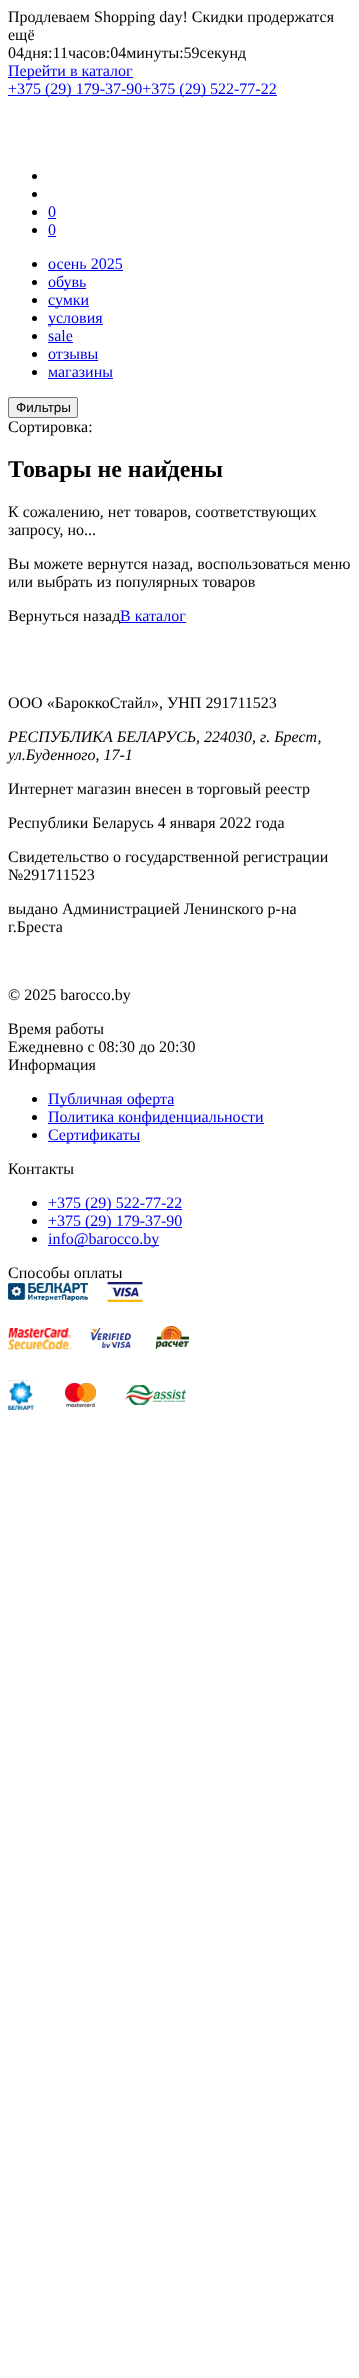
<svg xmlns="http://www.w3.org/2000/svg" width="359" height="2378">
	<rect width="100%" height="100%" fill="#FFFFFF" />
	<g font-family="Liberation Serif" font-size="16" fill="#000000">
		<text x="8" y="22">Продлеваем Shopping day! Скидки продержатся</text>
		<text x="8" y="40">ещё</text>
		<text x="8" y="58">04дня:11часов:04минуты:59секунд</text>
	</g>
	<rect x="8" y="77" width="125" height="1" fill="#0000EE" />
	<text x="8" y="76" font-family="Liberation Serif" font-size="16" fill="#0000EE">Перейти в каталог</text>
	<rect x="8" y="95" width="269" height="1" fill="#0000EE" />
	<text x="8" y="94" font-family="Liberation Serif" font-size="16" fill="#0000EE">+375 (29) 179-37-90+375 (29) 522-77-22</text>
	<circle cx="34.5" cy="176.5" r="2.5" fill="#000000" />
	<circle cx="34.5" cy="194.5" r="2.5" fill="#000000" />
	<circle cx="34.5" cy="212.5" r="2.5" fill="#000000" />
	<text x="48" y="217" font-family="Liberation Serif" font-size="16" fill="#0000EE">0</text>
	<rect x="48" y="218" width="8" height="1" fill="#0000EE" />
	<circle cx="34.5" cy="230.5" r="2.5" fill="#000000" />
	<text x="48" y="235" font-family="Liberation Serif" font-size="16" fill="#0000EE">0</text>
	<rect x="48" y="236" width="8" height="1" fill="#0000EE" />
	<circle cx="34.5" cy="264.5" r="2.5" fill="#000000" />
	<text x="48" y="269" font-family="Liberation Serif" font-size="16" fill="#0000EE">осень 2025</text>
	<rect x="48" y="270" width="75" height="1" fill="#0000EE" />
	<circle cx="34.5" cy="282.5" r="2.5" fill="#000000" />
	<rect x="48" y="288" width="38" height="1" fill="#0000EE" />
	<text x="48" y="287" font-family="Liberation Serif" font-size="16" fill="#0000EE">обувь</text>
	<circle cx="34.5" cy="300.5" r="2.5" fill="#000000" />
	<rect x="48" y="306" width="41" height="1" fill="#0000EE" />
	<text x="48" y="305" font-family="Liberation Serif" font-size="16" fill="#0000EE">сумки</text>
	<circle cx="34.5" cy="318.5" r="2.5" fill="#000000" />
	<rect x="48" y="324" width="55" height="1" fill="#0000EE" />
	<text x="48" y="323" font-family="Liberation Serif" font-size="16" fill="#0000EE">условия</text>
	<circle cx="34.5" cy="336.5" r="2.5" fill="#000000" />
	<text x="48" y="341" font-family="Liberation Serif" font-size="16" fill="#0000EE">sale</text>
	<rect x="48" y="342" width="25" height="1" fill="#0000EE" />
	<circle cx="34.5" cy="354.5" r="2.5" fill="#000000" />
	<text x="48" y="359" font-family="Liberation Serif" font-size="16" fill="#0000EE">отзывы</text>
	<rect x="48" y="360" width="50" height="1" fill="#0000EE" />
	<circle cx="34.5" cy="372.5" r="2.5" fill="#000000" />
	<text x="48" y="377" font-family="Liberation Serif" font-size="16" fill="#0000EE">магазины</text>
	<rect x="48" y="378" width="65" height="1" fill="#0000EE" />
	<rect x="8.5" y="397.5" width="69" height="20" rx="1.5" fill="#EFEFEF" stroke="#767676" />
	<text x="16" y="412" font-family="Liberation Sans" font-size="13.5" fill="#000000">Фильтры</text>
	<text x="8" y="432" font-family="Liberation Serif" font-size="16" fill="#000000">Сортировка:</text>
	<text x="8" y="477" font-family="Liberation Serif" font-size="24" font-weight="700" fill="#000000">Товары не найдены</text>
	<g font-family="Liberation Serif" font-size="16" fill="#000000">
		<text x="8" y="517">К сожалению, нет товаров, соответствующих</text>
		<text x="8" y="535">запросу, но...</text>
		<text x="8" y="569">Вы можете вернутся назад, воспользоваться меню</text>
		<text x="8" y="587">или выбрать из популярных товаров</text>
		<text x="8" y="621">Вернуться назад</text>
	</g>
	<text x="120" y="621" font-family="Liberation Serif" font-size="16" fill="#0000EE">В каталог</text>
	<rect x="120" y="622" width="66" height="1" fill="#0000EE" />
	<text x="8" y="708" font-family="Liberation Serif" font-size="16" fill="#000000">ООО «БароккоСтайл», УНП 291711523</text>
	<g font-family="Liberation Serif" font-size="16" font-style="italic" fill="#000000">
		<text x="8" y="742">РЕСПУБЛИКА БЕЛАРУСЬ, 224030, г. Брест,</text>
		<text x="8" y="760">ул.Буденного, 17-1</text>
	</g>
	<g font-family="Liberation Serif" font-size="16" fill="#000000">
		<text x="8" y="794">Интернет магазин внесен в торговый реестр</text>
		<text x="8" y="828">Республики Беларусь 4 января 2022 года</text>
		<text x="8" y="862">Свидетельство о государственной регистрации</text>
		<text x="8" y="880">№291711523</text>
		<text x="8" y="914">выдано Администрацией Ленинского р-на</text>
		<text x="8" y="932">г.Бреста</text>
		<text x="8" y="1000">© 2025 barocco.by</text>
		<text x="8" y="1034">Время работы</text>
		<text x="8" y="1052">Ежедневно с 08:30 до 20:30</text>
		<text x="8" y="1070">Информация</text>
	</g>
	<circle cx="34.5" cy="1099.5" r="2.5" fill="#000000" />
	<rect x="48" y="1105" width="126" height="1" fill="#0000EE" />
	<text x="48" y="1104" font-family="Liberation Serif" font-size="16" fill="#0000EE">Публичная оферта</text>
	<circle cx="34.5" cy="1117.5" r="2.5" fill="#000000" />
	<rect x="48" y="1123" width="216" height="1" fill="#0000EE" />
	<text x="48" y="1122" font-family="Liberation Serif" font-size="16" fill="#0000EE">Политика конфиденциальности</text>
	<circle cx="34.5" cy="1135.5" r="2.5" fill="#000000" />
	<rect x="48" y="1141" width="92" height="1" fill="#0000EE" />
	<text x="48" y="1140" font-family="Liberation Serif" font-size="16" fill="#0000EE">Сертификаты</text>
	<text x="8" y="1174" font-family="Liberation Serif" font-size="16" fill="#000000">Контакты</text>
	<circle cx="34.5" cy="1203.5" r="2.5" fill="#000000" />
	<rect x="48" y="1209" width="134" height="1" fill="#0000EE" />
	<text x="48" y="1208" font-family="Liberation Serif" font-size="16" fill="#0000EE">+375 (29) 522-77-22</text>
	<circle cx="34.5" cy="1221.5" r="2.5" fill="#000000" />
	<rect x="48" y="1227" width="134" height="1" fill="#0000EE" />
	<text x="48" y="1226" font-family="Liberation Serif" font-size="16" fill="#0000EE">+375 (29) 179-37-90</text>
	<circle cx="34.5" cy="1239.5" r="2.5" fill="#000000" />
	<rect x="48" y="1245" width="111" height="1" fill="#0000EE" />
	<text x="48" y="1244" font-family="Liberation Serif" font-size="16" fill="#0000EE">info@barocco.by</text>
	<text x="8" y="1278" font-family="Liberation Serif" font-size="16" fill="#000000">Способы оплаты</text>
	<image x="8" y="1282" width="181" height="129" href="assets/img1.png" />
</svg>
